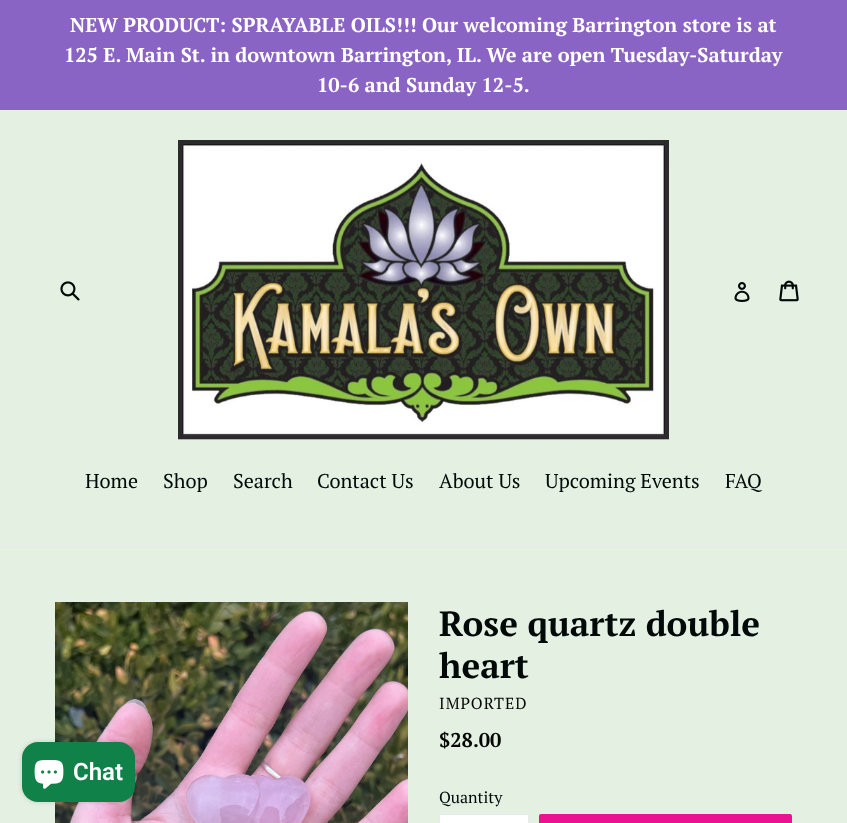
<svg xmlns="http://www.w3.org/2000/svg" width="847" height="823">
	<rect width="100%" height="100%" fill="#E3F0E2" />
	<rect x="0" y="0" width="847" height="110" fill="#8A64C4" />
	<g font-family="PT Serif" font-size="20" font-weight="700" fill="#FFFFFF">
		<text x="70" y="32">NEW PRODUCT: SPRAYABLE OILS!!! Our welcoming Barrington store is at</text>
		<text x="64" y="62">125 E. Main St. in downtown Barrington, IL. We are open Tuesday-Saturday</text>
		<text x="317" y="92">10-6 and Sunday 12-5.</text>
	</g>
	<image x="60" y="281" width="20" height="20" href="assets/img1.png" />
	<image x="178" y="140" width="491" height="300" href="assets/img2.png" />
	<image x="734" y="282" width="16" height="20" href="assets/img3.png" />
	<image x="779" y="280" width="20" height="22" href="assets/img4.png" />
	<rect x="0" y="546" width="847" height="1" fill="#E8E9EB" />
	<g font-family="PT Serif" font-size="20" fill="#010909">
		<text x="85" y="488">Home</text>
		<text x="163" y="488">Shop</text>
		<text x="233" y="488">Search</text>
		<text x="317" y="488">Contact Us</text>
		<text x="439" y="488">About Us</text>
		<text x="545" y="488">Upcoming Events</text>
		<text x="725" y="488">FAQ</text>
	</g>
	<image x="55" y="602" width="353" height="221" href="assets/img6.png" />
	<rect x="22" y="742" width="113" height="60" rx="16" fill="#000000" fill-opacity="0.15" filter="blur(2.5px)" />
	<rect x="22" y="742" width="113" height="60" rx="16" fill="#0F8149" />
	<image x="34" y="760" width="30" height="29" href="assets/img5.png" />
	<text x="73" y="780" font-family="Roboto" font-size="24" font-weight="600" fill="#FFFFFF">Chat</text>
	<g font-family="PT Serif" font-size="35" font-weight="700" fill="#010909">
		<text x="439" y="636">Rose quartz double</text>
		<text x="439" y="678">heart</text>
	</g>
	<text x="439" y="709" font-family="PT Serif" font-size="16" letter-spacing="1" fill="#080707">IMPORTED</text>
	<text x="439" y="747" font-family="PT Serif" font-size="20" font-weight="700" fill="#080707">$28.00</text>
	<text x="439" y="803" font-family="PT Serif" font-size="16" fill="#010909">Quantity</text>
	<rect x="439.5" y="814.5" width="89" height="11" rx="1.5" fill="#FFFFFF" stroke="#E8E9EB" />
	<rect x="539" y="814" width="253" height="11" rx="2" fill="#EA1290" />
</svg>
